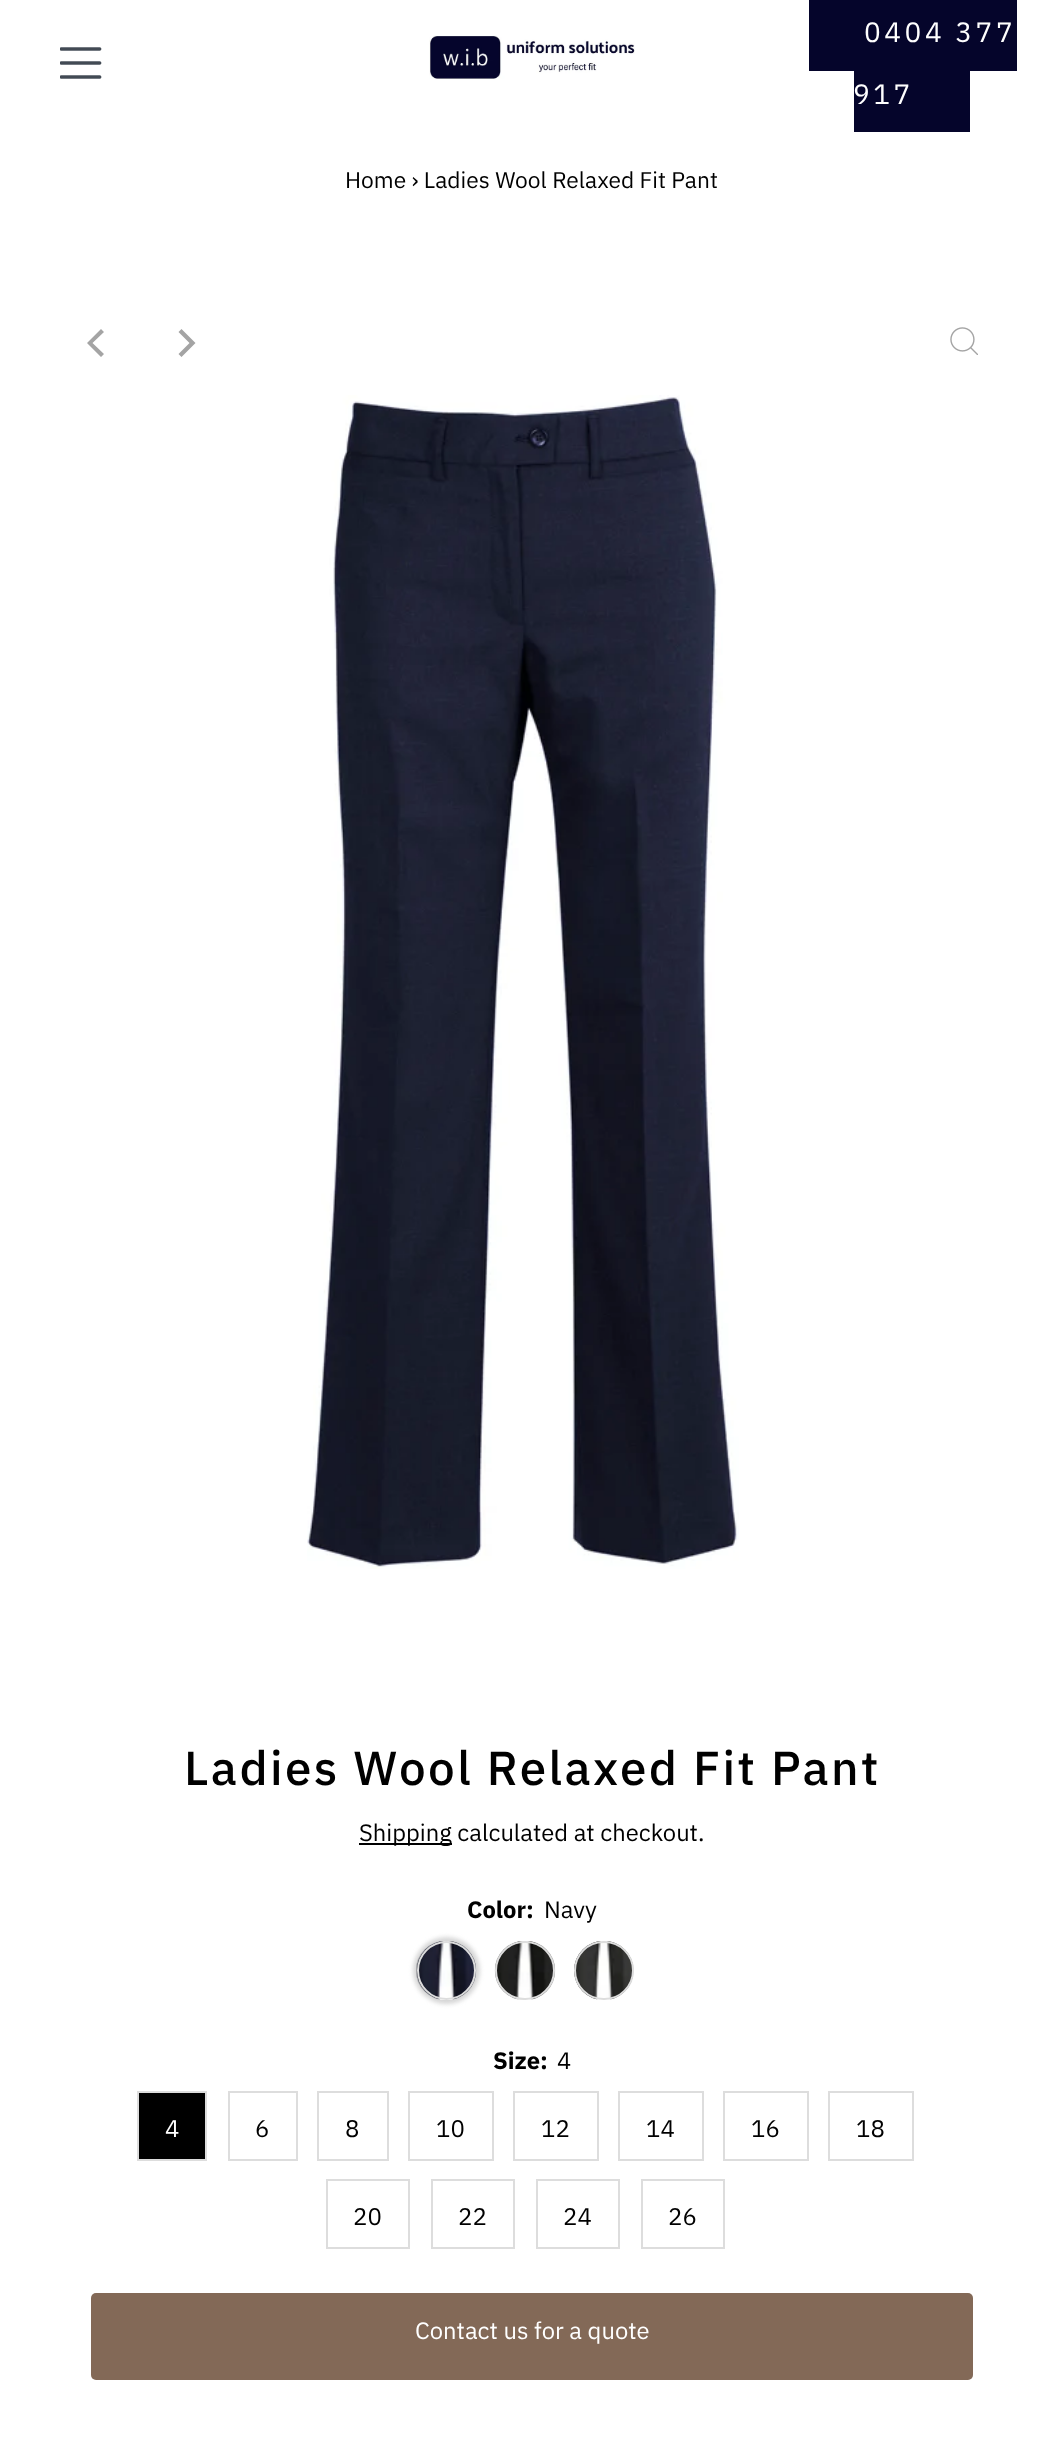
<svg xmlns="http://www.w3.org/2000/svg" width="1063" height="2450">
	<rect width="100%" height="100%" fill="#FFFFFF" />
	<image x="60" y="47" width="42" height="32" href="assets/img1.png" />
	<image x="429" y="35" width="206" height="44" href="assets/img2.png" />
	<rect x="809" y="0" width="208" height="71" fill="#05052B" />
	<text x="864" y="42" font-family="IBM Plex Sans" font-size="28" letter-spacing="3.5" fill="#FFFFFF">0404 377</text>
	<rect x="854" y="71" width="116" height="61" fill="#05052B" />
	<text x="853" y="104" font-family="IBM Plex Sans" font-size="28" letter-spacing="3.5" fill="#FFFFFF">917</text>
	<text x="345" y="188" font-family="IBM Plex Sans" font-size="22.75" fill="#000000">Home › Ladies Wool Relaxed Fit Pant</text>
	<path d="M87 343L101 357L104 354L92.5 343L104 332L101 329Z" fill="#A4A4A4" />
	<path d="M195.5 343L181.5 329L178.5 332L189.5 343L178.5 354L181.5 357Z" fill="#A4A4A4" />
	<image x="950" y="327" width="28" height="28" href="assets/img3.png" />
	<image x="307" y="395" width="432" height="1174" href="assets/img4.png" />
	<text x="184" y="1785" font-family="IBM Plex Sans" font-size="47.6" font-weight="500" letter-spacing="2.4" fill="#000000">Ladies Wool Relaxed Fit Pant</text>
	<rect x="359" y="1843" width="93" height="2" fill="#000000" />
	<text x="359" y="1841" font-family="IBM Plex Sans" font-size="23.75" fill="#000000">Shipping calculated at checkout.</text>
	<text x="467" y="1918" font-family="IBM Plex Sans" font-size="23.75" font-weight="700" fill="#000000">Color:</text>
	<text x="544" y="1918" font-family="IBM Plex Sans" font-size="23.75" fill="#000000">Navy</text>
	<rect x="413" y="1937" width="67" height="67" rx="33.5" fill="#D6D6D6" filter="blur(2px)" />
	<image x="416" y="1941" width="61" height="59" href="assets/img5.png" />
	<circle cx="446.5" cy="1970.5" r="28.5" fill="none" stroke="#DDDDDD" stroke-width="2" />
	<image x="494" y="1941" width="62" height="59" href="assets/img6.png" />
	<rect x="496" y="1942" width="58" height="57" rx="28.5" fill="none" stroke="#DDDDDD" stroke-width="2" />
	<image x="574" y="1941" width="60" height="59" href="assets/img7.png" />
	<rect x="575" y="1942" width="58" height="57" rx="28.5" fill="none" stroke="#DDDDDD" stroke-width="2" />
	<text x="493" y="2069" font-family="IBM Plex Sans" font-size="23.75" font-weight="700" fill="#000000">Size:</text>
	<text x="557" y="2069" font-family="IBM Plex Sans" font-size="23.75" fill="#000000">4</text>
	<rect x="138" y="2092" width="68" height="68" fill="#000000" stroke="#DDDDDD" stroke-width="2" />
	<text x="165" y="2137" font-family="IBM Plex Sans" font-size="24" fill="#FFFFFF">4</text>
	<rect x="229" y="2092" width="68" height="68" fill="none" stroke="#DDDDDD" stroke-width="2" />
	<text x="255" y="2137" font-family="IBM Plex Sans" font-size="24" fill="#000000">6</text>
	<rect x="318" y="2092" width="70" height="68" fill="none" stroke="#DDDDDD" stroke-width="2" />
	<text x="345" y="2137" font-family="IBM Plex Sans" font-size="24" fill="#000000">8</text>
	<rect x="409" y="2092" width="84" height="68" fill="none" stroke="#DDDDDD" stroke-width="2" />
	<text x="436" y="2137" font-family="IBM Plex Sans" font-size="24" fill="#000000">10</text>
	<rect x="514" y="2092" width="84" height="68" fill="none" stroke="#DDDDDD" stroke-width="2" />
	<text x="541" y="2137" font-family="IBM Plex Sans" font-size="24" fill="#000000">12</text>
	<rect x="619" y="2092" width="84" height="68" fill="none" stroke="#DDDDDD" stroke-width="2" />
	<text x="646" y="2137" font-family="IBM Plex Sans" font-size="24" fill="#000000">14</text>
	<rect x="724" y="2092" width="84" height="68" fill="none" stroke="#DDDDDD" stroke-width="2" />
	<text x="751" y="2137" font-family="IBM Plex Sans" font-size="24" fill="#000000">16</text>
	<rect x="829" y="2092" width="84" height="68" fill="none" stroke="#DDDDDD" stroke-width="2" />
	<text x="856" y="2137" font-family="IBM Plex Sans" font-size="24" fill="#000000">18</text>
	<rect x="327" y="2180" width="82" height="68" fill="none" stroke="#DDDDDD" stroke-width="2" />
	<text x="353" y="2225" font-family="IBM Plex Sans" font-size="24" fill="#000000">20</text>
	<rect x="432" y="2180" width="82" height="68" fill="none" stroke="#DDDDDD" stroke-width="2" />
	<text x="458" y="2225" font-family="IBM Plex Sans" font-size="24" fill="#000000">22</text>
	<rect x="537" y="2180" width="82" height="68" fill="none" stroke="#DDDDDD" stroke-width="2" />
	<text x="563" y="2225" font-family="IBM Plex Sans" font-size="24" fill="#000000">24</text>
	<rect x="642" y="2180" width="82" height="68" fill="none" stroke="#DDDDDD" stroke-width="2" />
	<text x="668" y="2225" font-family="IBM Plex Sans" font-size="24" fill="#000000">26</text>
	<rect x="91" y="2293" width="882" height="87" rx="5" fill="#836957" />
	<text x="415" y="2339" font-family="IBM Plex Sans" font-size="23.75" fill="#FFFFFF">Contact us for a quote</text>
</svg>
